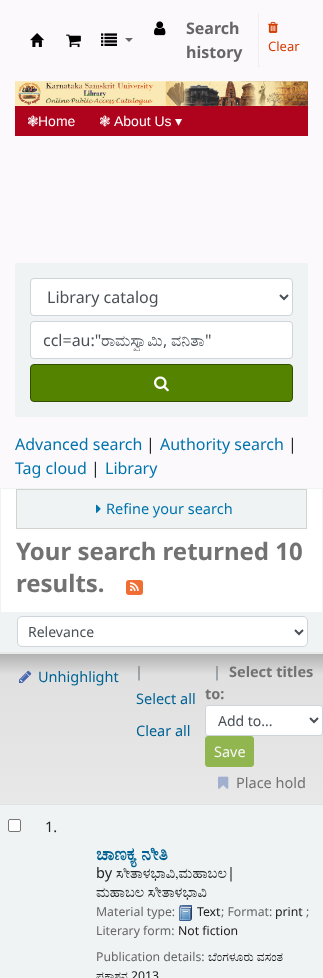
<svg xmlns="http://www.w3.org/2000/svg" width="323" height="978">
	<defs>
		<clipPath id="clip1"><rect x="43" y="329" width="237" height="22" /></clipPath>
		<linearGradient id="g1" gradientUnits="userSpaceOnUse" x1="162" y1="504" x2="162" y2="654"><stop offset="0" stop-color="#B2B2B2" /><stop offset="0.14" stop-color="#E0E0E0" /><stop offset="1" stop-color="#E8E8E8" /></linearGradient>
		<linearGradient id="g2" gradientUnits="userSpaceOnUse" x1="162" y1="654" x2="162" y2="804"><stop offset="0" stop-color="#B2B2B2" /><stop offset="0.14" stop-color="#E0E0E0" /><stop offset="1" stop-color="#E8E8E8" /></linearGradient>
	</defs>
	<rect width="100%" height="100%" fill="#FCF9FC" />
	<image x="30" y="33" width="14" height="14" href="assets/img1.png" />
	<image x="66" y="34" width="15" height="14" href="assets/img2.png" />
	<image x="101" y="33" width="16" height="13" href="assets/img3.png" />
	<path d="M125 38H133L129 42Z" fill="#666666" />
	<image x="154" y="21" width="12" height="15" href="assets/img4.png" />
	<g font-family="Noto Sans" font-size="16" font-weight="700" fill="#666666">
		<text x="186" y="34">Search</text>
		<text x="186" y="58">history</text>
	</g>
	<rect x="258" y="66" width="2" height="1" fill="#EEEEEE" />
	<rect x="258" y="13" width="1" height="54" fill="#EEEEEE" />
	<image x="268" y="21" width="11" height="12" href="assets/img5.png" />
	<text x="268" y="51" font-family="Noto Sans" font-size="13" fill="#D43C00">Clear</text>
	<image x="15" y="81" width="293" height="25" href="assets/img6.png" />
	<rect x="15" y="106" width="293" height="30" fill="#AF031D" />
	<text x="27" y="126" font-family="DejaVu Sans" font-size="14" fill="#FFFFFF">❃</text>
	<text x="38" y="126" font-family="Liberation Sans" font-size="14" fill="#FFFFFF">Home</text>
	<text x="99" y="126" font-family="DejaVu Sans" font-size="14" fill="#FFFFFF">❃</text>
	<text x="114" y="126" font-family="Liberation Sans" font-size="14" fill="#FFFFFF">About Us</text>
	<text x="175" y="126" font-family="DejaVu Sans" font-size="14" fill="#FFFFFF">▾</text>
	<rect x="15" y="263" width="293" height="154" fill="#F0F3F3" />
	<rect x="30.5" y="278.5" width="262" height="37" rx="3.5" fill="#FFFFFF" stroke="#CED4DA" />
	<path d="M280 295L284 299L288 295" fill="none" stroke="#495057" stroke-width="2" />
	<text x="47" y="303" font-family="Noto Sans" font-size="16" fill="#495057">Library catalog</text>
	<rect x="30.5" y="321.5" width="262" height="37" rx="3.5" fill="#FFFFFF" stroke="#CED4DA" />
	<text x="43" y="346" font-family="Noto Sans" font-size="16" fill="#495057">ccl=au:"</text>
	<g clip-path="url(#clip1)">
		<text x="101" y="346" font-family="FreeSerif" font-size="16" fill="#495057">ರಾಮಸ್ವಾಮಿ</text>
	</g>
	<text x="163" y="346" font-family="Noto Sans" font-size="16" fill="#495057">,</text>
	<text x="171" y="346" font-family="FreeSerif" font-size="16" fill="#495057">ವನಿತಾ</text>
	<text x="205" y="346" font-family="Noto Sans" font-size="16" fill="#495057">"</text>
	<rect x="30.5" y="364.5" width="262" height="37" rx="3.5" fill="#548300" stroke="#335000" />
	<image x="154" y="376" width="15" height="16" href="assets/img7.png" />
	<text x="15" y="450" font-family="Noto Sans" font-size="16" fill="#0074AD">Advanced search</text>
	<text x="146" y="450" font-family="Noto Sans" font-size="16" fill="#212529">|</text>
	<text x="160" y="450" font-family="Noto Sans" font-size="16" fill="#0074AD">Authority search</text>
	<text x="288" y="450" font-family="Noto Sans" font-size="16" fill="#212529">|</text>
	<text x="15" y="474" font-family="Noto Sans" font-size="16" fill="#0074AD">Tag cloud</text>
	<text x="91" y="474" font-family="Noto Sans" font-size="16" fill="#212529">|</text>
	<text x="105" y="474" font-family="Noto Sans" font-size="16" fill="#0074AD">Library</text>
	<rect x="1" y="489" width="321" height="123" fill="#FFFFFF" />
	<rect x="0.5" y="488.5" width="322" height="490" fill="none" stroke="#F0F3F3" />
	<rect x="16.5" y="489.5" width="290" height="39" fill="none" stroke="#D2D2CF" />
	<rect x="17" y="490" width="289" height="38" fill="#F0F3F3" />
	<image x="96" y="504" width="5" height="9" href="assets/img8.png" />
	<text x="106" y="514" font-family="Noto Sans" font-size="14.5" fill="#0074AD">Refine your search</text>
	<g font-family="Noto Sans" font-size="24" font-weight="700" fill="#727272">
		<text x="16" y="560">Your search returned 10</text>
		<text x="16" y="592">results.</text>
	</g>
	<rect x="126" y="580" width="17" height="15" rx="3" fill="#F06D34" />
	<image x="130" y="582" width="9" height="9" href="assets/img9.png" />
	<rect x="1" y="612" width="321" height="40" fill="#F0F3F3" />
	<rect x="0" y="652" width="323" height="1" fill="#E8E8E8" />
	<rect x="17.5" y="616.5" width="290" height="30" rx="4.5" fill="#FFFFFF" stroke="#CED4DA" />
	<path d="M295 630L299 634L303 630" fill="none" stroke="#495057" stroke-width="2" />
	<text x="28" y="637" font-family="Noto Sans" font-size="14" fill="#495057">Relevance</text>
	<rect x="0" y="653" width="323" height="1" fill="url(#g1)" />
	<rect x="0" y="654" width="323" height="150" fill="url(#g2)" />
	<image x="19" y="670" width="13" height="13" href="assets/img10.png" />
	<text x="38" y="682" font-family="Noto Sans" font-size="14.5" fill="#006394">Unhighlight</text>
	<text x="135" y="677" font-family="Noto Sans" font-size="14.5" fill="#6C757D">|</text>
	<g font-family="Noto Sans" font-size="14.5" fill="#006394">
		<text x="136" y="704">Select all</text>
		<text x="136" y="736">Clear all</text>
	</g>
	<text x="213" y="677" font-family="Noto Sans" font-size="14.5" fill="#6C757D">|</text>
	<g font-family="Noto Sans" font-size="14.5" font-weight="700" fill="#727272">
		<text x="229" y="677">Select titles</text>
		<text x="205" y="699">to:</text>
	</g>
	<rect x="205.5" y="705.5" width="117" height="30" rx="2.5" fill="#FFFFFF" stroke="#CED4DA" />
	<path d="M310 718L314 722L318 718" fill="none" stroke="#495057" stroke-width="2" />
	<text x="218" y="726" font-family="Noto Sans" font-size="14" fill="#495057">Add to...</text>
	<rect x="205.5" y="736.5" width="48" height="30" rx="2.5" fill="#91B650" stroke="#91B650" />
	<text x="214" y="757" font-family="Noto Sans" font-size="14.5" fill="#F6F6F6">Save</text>
	<image x="218" y="776" width="11" height="13" href="assets/img11.png" />
	<text x="236" y="788" font-family="Noto Sans" font-size="14.5" fill="#727272">Place hold</text>
	<rect x="1" y="805" width="321" height="173" fill="#F0F3F3" />
	<rect x="8.5" y="819.5" width="12" height="12" rx="1.5" fill="#FFFFFF" stroke="#767676" />
	<text x="45" y="832" font-family="Noto Sans" font-size="14.5" fill="#212529">1.</text>
	<rect x="0" y="804" width="323" height="1" fill="#DEE2E6" />
	<text x="96" y="860" font-family="FreeSerif" font-size="17.5" font-weight="700" fill="#006394">ಚಾಣಕ್ಯ ನೀತಿ</text>
	<text x="116" y="878" font-family="FreeSerif" font-size="14.5" fill="#212529">ಸೀತಾಳಭಾವಿ,ಮಹಾಬಲ</text>
	<text x="227" y="878" font-family="Noto Sans" font-size="14.5" fill="#212529">|</text>
	<text x="96" y="897" font-family="FreeSerif" font-size="14.5" fill="#212529">ಮಹಾಬಲ ಸೀತಾಳಭಾವಿ</text>
	<text x="96" y="878" font-family="Noto Sans" font-size="14.5" fill="#212529">by</text>
	<text x="96" y="916" font-family="Noto Sans" font-size="12.25" fill="#666666">Material type:</text>
	<image x="179" y="905" width="13" height="16" href="assets/img12.png" />
	<text x="197" y="916" font-family="Noto Sans" font-size="12.25" fill="#202020">Text</text>
	<text x="221" y="916" font-family="Noto Sans" font-size="12.25" fill="#666666">; Format:</text>
	<text x="275" y="916" font-family="Noto Sans" font-size="12.25" fill="#202020">print</text>
	<g font-family="Noto Sans" font-size="12.25" fill="#666666">
		<text x="306" y="916">;</text>
		<text x="96" y="935">Literary form:</text>
	</g>
	<text x="178" y="935" font-family="Noto Sans" font-size="12.25" fill="#202020">Not fiction</text>
	<text x="96" y="961" font-family="Noto Sans" font-size="12.25" fill="#666666">Publication details:</text>
	<g font-family="FreeSerif" font-size="12.25" fill="#202020">
		<text x="208" y="961">ಬೆಂಗಳೂರು ವಸಂತ</text>
		<text x="96" y="980">ಪ್ರಕಾಶನ</text>
	</g>
	<text x="131" y="980" font-family="Noto Sans" font-size="12.25" fill="#202020">2013</text>
</svg>
